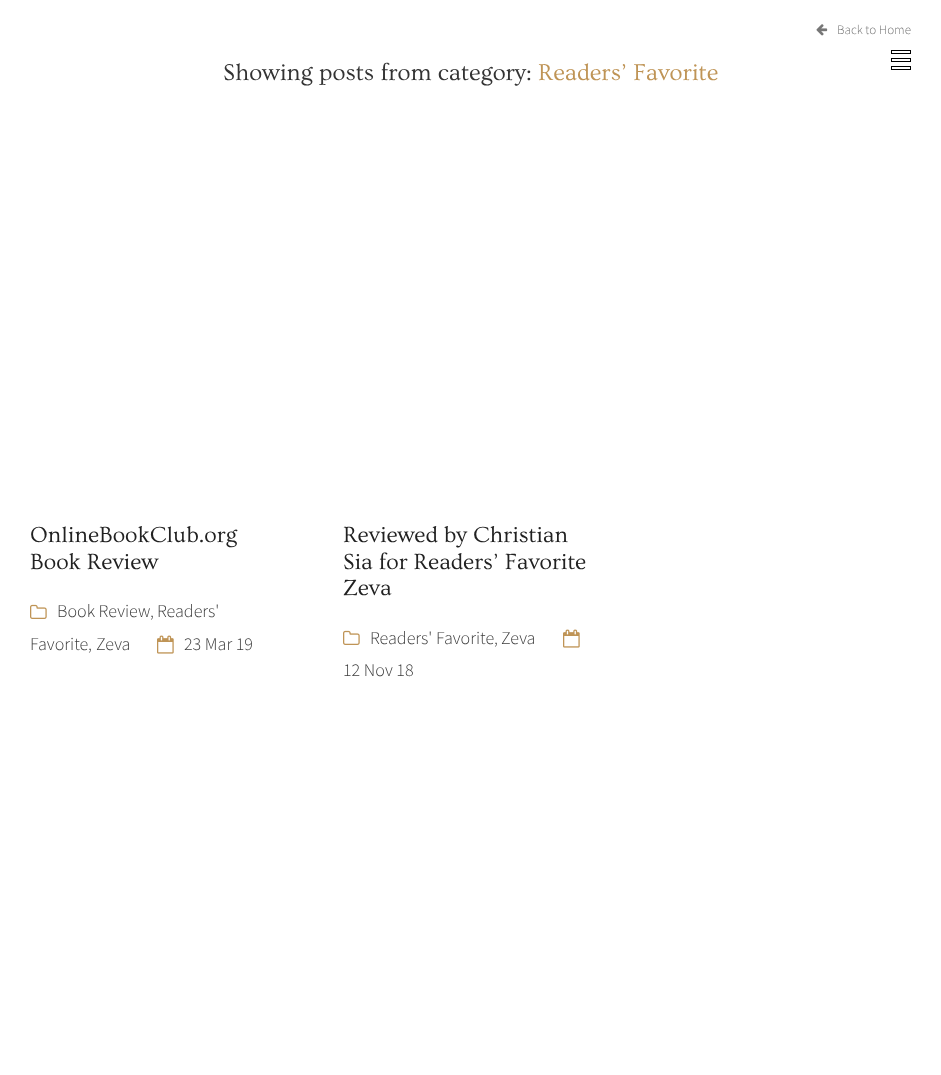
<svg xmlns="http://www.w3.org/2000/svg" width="941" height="1075">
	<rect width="100%" height="100%" fill="#FFFFFF" />
	<image x="816" y="24" width="12" height="12" href="assets/img1.png" />
	<text x="837" y="34" font-family="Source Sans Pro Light" font-size="13" font-weight="300" fill="#767676">Back to Home</text>
	<rect x="891.5" y="50.5" width="19" height="3" fill="none" stroke="#000000" />
	<rect x="891.5" y="58.5" width="19" height="3" fill="none" stroke="#000000" />
	<rect x="891.5" y="66.5" width="19" height="3" fill="none" stroke="#000000" />
	<text x="223" y="80" font-family="Ovo" font-size="24" fill="#333333">Showing posts from category:</text>
	<text x="538" y="80" font-family="Ovo" font-size="24" fill="#BF9456">Readers’ Favorite</text>
	<g font-family="Ovo" font-size="23" fill="#212121">
		<text x="30" y="542">OnlineBookClub.org</text>
		<text x="30" y="569">Book Review</text>
	</g>
	<image x="30" y="604" width="17" height="15" href="assets/img2.png" />
	<text x="57" y="617" font-family="Source Sans Pro Light" font-size="18" font-weight="300" fill="#3B3B3B">Book Review</text>
	<text x="150" y="617" font-family="Source Sans Pro Light" font-size="18" font-weight="300" fill="#515151">,</text>
	<g font-family="Source Sans Pro Light" font-size="18" font-weight="300" fill="#3B3B3B">
		<text x="157" y="617">Readers'</text>
		<text x="30" y="650">Favorite</text>
	</g>
	<text x="88" y="650" font-family="Source Sans Pro Light" font-size="18" font-weight="300" fill="#515151">,</text>
	<text x="96" y="650" font-family="Source Sans Pro Light" font-size="18" font-weight="300" fill="#3B3B3B">Zeva</text>
	<image x="157" y="635" width="17" height="19" href="assets/img3.png" />
	<text x="184" y="650" font-family="Source Sans Pro Light" font-size="18" font-weight="300" fill="#3B3B3B">23 Mar 19</text>
	<g font-family="Ovo" font-size="23" fill="#212121">
		<text x="343" y="542">Reviewed by Christian</text>
		<text x="343" y="569">Sia for Readers’ Favorite</text>
		<text x="343" y="595">Zeva</text>
	</g>
	<image x="343" y="630" width="17" height="15" href="assets/img2.png" />
	<text x="370" y="644" font-family="Source Sans Pro Light" font-size="18" font-weight="300" fill="#3B3B3B">Readers' Favorite</text>
	<text x="494" y="644" font-family="Source Sans Pro Light" font-size="18" font-weight="300" fill="#515151">,</text>
	<text x="501" y="644" font-family="Source Sans Pro Light" font-size="18" font-weight="300" fill="#3B3B3B">Zeva</text>
	<image x="563" y="629" width="17" height="19" href="assets/img3.png" />
	<text x="343" y="676" font-family="Source Sans Pro Light" font-size="18" font-weight="300" fill="#3B3B3B">12 Nov 18</text>
</svg>
